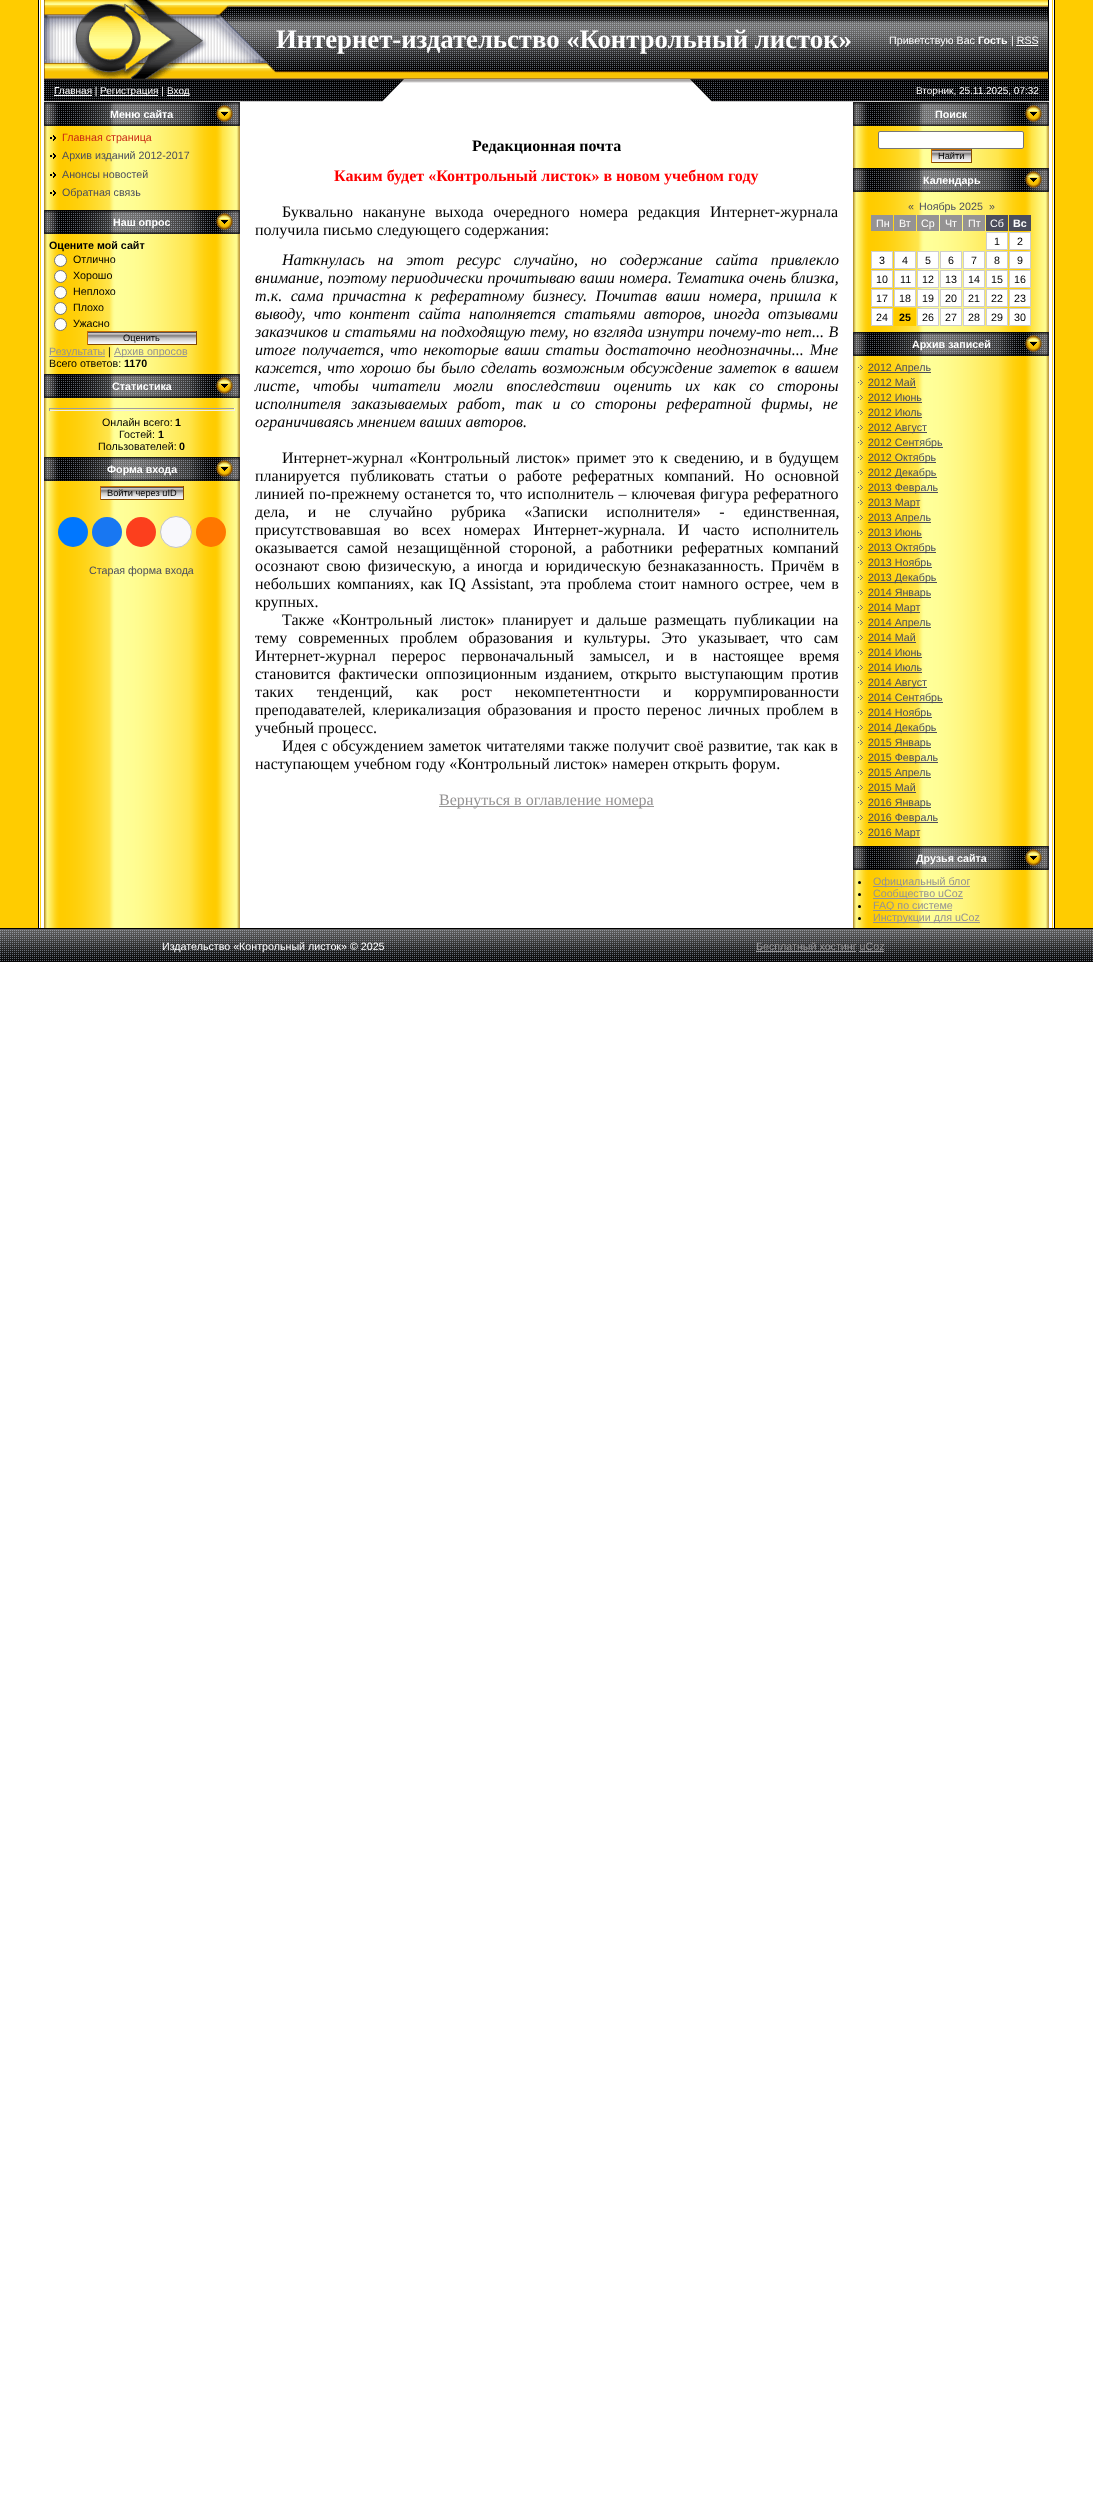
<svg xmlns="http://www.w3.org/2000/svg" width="1093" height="2497">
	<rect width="100%" height="100%" fill="#FFFFFF" />
	<rect x="0" y="0" width="38" height="928" fill="#FFCC00" />
	<image x="38" y="0" width="6" height="928" href="assets/img1.png" />
	<image x="276" y="0" width="772" height="79" href="assets/img2.png" />
	<rect x="1048" y="0" width="1" height="79" fill="#000000" />
	<image x="44" y="0" width="232" height="79" href="assets/img3.png" />
	<text x="276" y="48" font-family="Liberation Serif" font-size="26.7" font-weight="700" fill="#FFFFFF">Интернет-издательство «Контрольный листок»</text>
	<text x="889" y="44" font-family="Liberation Sans" font-size="10.7" fill="#FFFFFF">Приветствую Вас</text>
	<text x="978" y="44" font-family="Liberation Sans" font-size="10.7" font-weight="700" fill="#FFFFFF">Гость</text>
	<text x="1011" y="44" font-family="Liberation Sans" font-size="10.7" fill="#FFFFFF">| RSS</text>
	<rect x="1016" y="45" width="22" height="1" fill="#FFFFFF" />
	<image x="404" y="79" width="286" height="4" href="assets/img4.png" />
	<image x="44" y="79" width="335" height="23" href="assets/img5.png" />
	<rect x="54" y="95" width="38" height="1" fill="#FFFFFF" />
	<text x="54" y="94" font-family="Liberation Sans" font-size="10" fill="#FFFFFF">Главная |</text>
	<rect x="100" y="95" width="58" height="1" fill="#FFFFFF" />
	<text x="100" y="94" font-family="Liberation Sans" font-size="10" fill="#FFFFFF">Регистрация |</text>
	<rect x="167" y="95" width="22" height="1" fill="#FFFFFF" />
	<text x="167" y="94" font-family="Liberation Sans" font-size="10" fill="#FFFFFF">Вход</text>
	<image x="379" y="79" width="25" height="23" href="assets/img6.png" />
	<image x="690" y="79" width="25" height="23" href="assets/img7.png" />
	<image x="715" y="79" width="334" height="23" href="assets/img8.png" />
	<text x="916" y="94" font-family="Liberation Sans" font-size="10" fill="#FFFFFF">Вторник, 25.11.2025, 07:32</text>
	<image x="44" y="126" width="196" height="802" href="assets/img9.png" />
	<image x="44" y="102" width="196" height="24" href="assets/img10.png" />
	<text x="110" y="118" font-family="Liberation Sans" font-size="10.7" font-weight="700" fill="#FFFFFF">Меню сайта</text>
	<image x="50" y="135" width="6" height="6" href="assets/img11.png" />
	<text x="62" y="141" font-family="Liberation Sans" font-size="10.7" fill="#CA2913">Главная страница</text>
	<image x="50" y="153" width="6" height="6" href="assets/img11.png" />
	<text x="62" y="159" font-family="Liberation Sans" font-size="10.7" fill="#4B4D5C">Архив изданий 2012-2017</text>
	<image x="50" y="172" width="6" height="6" href="assets/img11.png" />
	<text x="62" y="178" font-family="Liberation Sans" font-size="10.7" fill="#4B4D5C">Анонсы новостей</text>
	<image x="50" y="190" width="6" height="6" href="assets/img11.png" />
	<text x="62" y="196" font-family="Liberation Sans" font-size="10.7" fill="#4B4D5C">Обратная связь</text>
	<image x="44" y="210" width="196" height="24" href="assets/img10.png" />
	<text x="113" y="226" font-family="Liberation Sans" font-size="10.7" font-weight="700" fill="#FFFFFF">Наш опрос</text>
	<text x="49" y="249" font-family="Liberation Sans" font-size="10.7" font-weight="700" fill="#000000">Оцените мой сайт</text>
	<circle cx="60.5" cy="260.5" r="6" fill="#FFFFFF" stroke="#767676" />
	<text x="73" y="263" font-family="Liberation Sans" font-size="10.7" fill="#000000">Отлично</text>
	<circle cx="60.5" cy="276.5" r="6" fill="#FFFFFF" stroke="#767676" />
	<text x="73" y="279" font-family="Liberation Sans" font-size="10.7" fill="#000000">Хорошо</text>
	<circle cx="60.5" cy="292.5" r="6" fill="#FFFFFF" stroke="#767676" />
	<text x="73" y="295" font-family="Liberation Sans" font-size="10.7" fill="#000000">Неплохо</text>
	<circle cx="60.5" cy="308.5" r="6" fill="#FFFFFF" stroke="#767676" />
	<text x="73" y="311" font-family="Liberation Sans" font-size="10.7" fill="#000000">Плохо</text>
	<circle cx="60.5" cy="324.5" r="6" fill="#FFFFFF" stroke="#767676" />
	<text x="73" y="327" font-family="Liberation Sans" font-size="10.7" fill="#000000">Ужасно</text>
	<image x="88" y="332" width="108" height="12" href="assets/img12.png" />
	<rect x="87" y="331" width="110" height="1" fill="#C66D00" />
	<rect x="196" y="331" width="1" height="14" fill="#844900" />
	<rect x="87" y="344" width="110" height="1" fill="#844900" />
	<rect x="87" y="331" width="1" height="14" fill="#C66D00" />
	<text x="123" y="341" font-family="Liberation Sans" font-size="9.25" fill="#000000">Оценить</text>
	<rect x="49" y="356" width="56" height="1" fill="#959393" />
	<text x="49" y="355" font-family="Liberation Sans" font-size="10.7" fill="#959393">Результаты</text>
	<text x="108" y="355" font-family="Liberation Sans" font-size="10.7" fill="#000000">|</text>
	<rect x="114" y="356" width="73" height="1" fill="#959393" />
	<text x="114" y="355" font-family="Liberation Sans" font-size="10.7" fill="#959393">Архив опросов</text>
	<text x="49" y="367" font-family="Liberation Sans" font-size="10.7" fill="#000000">Всего ответов:</text>
	<text x="124" y="367" font-family="Liberation Sans" font-size="10.7" font-weight="700" fill="#000000">1170</text>
	<image x="44" y="374" width="196" height="24" href="assets/img10.png" />
	<text x="112" y="390" font-family="Liberation Sans" font-size="10.7" font-weight="700" fill="#FFFFFF">Статистика</text>
	<rect x="49" y="408" width="186" height="1" fill="#9F9F9F" />
	<rect x="234" y="408" width="1" height="3" fill="#EEEEEE" />
	<rect x="49" y="410" width="186" height="1" fill="#EEEEEE" />
	<rect x="49" y="408" width="1" height="3" fill="#9F9F9F" />
	<text x="102" y="426" font-family="Liberation Sans" font-size="10.7" fill="#000000">Онлайн всего:</text>
	<text x="175" y="426" font-family="Liberation Sans" font-size="10.7" font-weight="700" fill="#000000">1</text>
	<text x="119" y="438" font-family="Liberation Sans" font-size="10.7" fill="#000000">Гостей:</text>
	<text x="158" y="438" font-family="Liberation Sans" font-size="10.7" font-weight="700" fill="#000000">1</text>
	<text x="98" y="450" font-family="Liberation Sans" font-size="10.7" fill="#000000">Пользователей:</text>
	<text x="179" y="450" font-family="Liberation Sans" font-size="10.7" font-weight="700" fill="#000000">0</text>
	<image x="44" y="457" width="196" height="24" href="assets/img10.png" />
	<text x="107" y="473" font-family="Liberation Sans" font-size="10.7" font-weight="700" fill="#FFFFFF">Форма входа</text>
	<image x="101" y="487" width="82" height="12" href="assets/img13.png" />
	<rect x="100" y="486" width="84" height="1" fill="#C66D00" />
	<rect x="183" y="486" width="1" height="14" fill="#844900" />
	<rect x="100" y="499" width="84" height="1" fill="#844900" />
	<rect x="100" y="486" width="1" height="14" fill="#C66D00" />
	<text x="107" y="496" font-family="Liberation Sans" font-size="9.25" fill="#000000">Войти через uID</text>
	<circle cx="73" cy="532" r="15" fill="#0077FF" />
	<circle cx="107" cy="532" r="15" fill="#1877F2" />
	<circle cx="141" cy="532" r="15" fill="#FC3F1D" />
	<circle cx="176" cy="532" r="15.5" fill="#F8F8FC" stroke="#C4C4C4" />
	<circle cx="211" cy="532" r="15" fill="#FF7700" />
	<text x="89" y="574" font-family="Liberation Sans" font-size="10.7" fill="#4B4D5C">Старая форма входа</text>
	<text x="472" y="151" font-family="Liberation Serif" font-size="16" font-weight="700" fill="#000000">Редакционная почта</text>
	<text x="334" y="181" font-family="Liberation Serif" font-size="16" font-weight="700" fill="#FF0000">Каким будет «Контрольный листок» в новом учебном году</text>
	<g font-family="Liberation Serif" font-size="16" fill="#000000">
		<text x="282" y="217" word-spacing="5.75">Буквально накануне выхода очередного номера редакция Интернет-журнала</text>
		<text x="255" y="235">получила письмо следующего содержания:</text>
	</g>
	<g font-family="Liberation Serif" font-size="16" font-style="italic" fill="#000000">
		<text x="282" y="265" word-spacing="8.75">Наткнулась на этот ресурс случайно, но содержание сайта привлекло</text>
		<text x="255" y="283" word-spacing="0.5">внимание, поэтому периодически прочитываю ваши номера. Тематика очень близка,</text>
		<text x="255" y="301" word-spacing="4.5">т.к. сама причастна к рефератному бизнесу. Почитав ваши номера, пришла к</text>
		<text x="255" y="319" word-spacing="4.25">выводу, что контент сайта наполняется статьями авторов, иногда отзывами</text>
		<text x="255" y="337" word-spacing="0.5">заказчиков и статьями на подходящую тему, но взгляда изнутри почему-то нет... В</text>
		<text x="255" y="355" word-spacing="2">итоге получается, что некоторые ваши статьи достаточно неоднозначны... Мне</text>
		<text x="255" y="373" word-spacing="1.6">кажется, что хорошо бы было сделать возможным обсуждение заметок в вашем</text>
		<text x="255" y="391" word-spacing="9.25">листе, чтобы читатели могли впоследствии оценить их как со стороны</text>
		<text x="255" y="409" word-spacing="6">исполнителя заказываемых работ, так и со стороны рефератной фирмы, не</text>
		<text x="255" y="427">ограничиваясь мнением ваших авторов.</text>
	</g>
	<g font-family="Liberation Serif" font-size="16" fill="#000000">
		<text x="282" y="463" word-spacing="2.25">Интернет-журнал «Контрольный листок» примет это к сведению, и в будущем</text>
		<text x="255" y="481" word-spacing="6.25">планируется публиковать статьи о работе рефератных компаний. Но основной</text>
		<text x="255" y="499" word-spacing="0.75">линией по-прежнему останется то, что исполнитель – ключевая фигура рефератного</text>
		<text x="255" y="517" word-spacing="14.5">дела, и не случайно рубрика «Записки исполнителя» - единственная,</text>
		<text x="255" y="535" word-spacing="8.75">присутствовавшая во всех номерах Интернет-журнала. И часто исполнитель</text>
		<text x="255" y="553" word-spacing="5">оказывается самой незащищённой стороной, а работники рефератных компаний</text>
		<text x="255" y="571" word-spacing="3">осознают свою физическую, а иногда и юридическую безнаказанность. Причём в</text>
		<text x="255" y="589" word-spacing="2.25">небольших компаниях, как IQ Assistant, эта проблема стоит намного острее, чем в</text>
		<text x="255" y="607">крупных.</text>
		<text x="282" y="625" word-spacing="3.75">Также «Контрольный листок» планирует и дальше размещать публикации на</text>
		<text x="255" y="643" word-spacing="7">тему современных проблем образования и культуры. Это указывает, что сам</text>
		<text x="255" y="661" word-spacing="11.5">Интернет-журнал перерос первоначальный замысел, и в настоящее время</text>
		<text x="255" y="679" word-spacing="3.75">становится фактически оппозиционным изданием, открыто выступающим против</text>
		<text x="255" y="697" word-spacing="19">таких тенденций, как рост некомпетентности и коррумпированности</text>
		<text x="255" y="715" word-spacing="2.5">преподавателей, клерикализация образования и просто перенос личных проблем в</text>
		<text x="255" y="733">учебный процесс.</text>
		<text x="282" y="751" word-spacing="0.5">Идея с обсуждением заметок читателями также получит своё развитие, так как в</text>
		<text x="255" y="769">наступающем учебном году «Контрольный листок» намерен открыть форум.</text>
	</g>
	<rect x="439" y="806" width="215" height="1" fill="#959393" />
	<text x="439" y="805" font-family="Liberation Serif" font-size="16" fill="#959393">Вернуться в оглавление номера</text>
	<image x="853" y="126" width="196" height="802" href="assets/img9.png" />
	<image x="853" y="102" width="196" height="24" href="assets/img10.png" />
	<text x="935" y="118" font-family="Liberation Sans" font-size="10.7" font-weight="700" fill="#FFFFFF">Поиск</text>
	<rect x="878.5" y="131.5" width="145" height="17" rx="1.5" fill="#FFFFFF" stroke="#767676" />
	<image x="932" y="150" width="39" height="12" href="assets/img14.png" />
	<rect x="931" y="149" width="41" height="1" fill="#C66D00" />
	<rect x="971" y="149" width="1" height="14" fill="#844900" />
	<rect x="931" y="162" width="41" height="1" fill="#844900" />
	<rect x="931" y="149" width="1" height="14" fill="#C66D00" />
	<text x="938" y="159" font-family="Liberation Sans" font-size="9.25" fill="#000000">Найти</text>
	<image x="853" y="168" width="196" height="24" href="assets/img10.png" />
	<text x="923" y="184" font-family="Liberation Sans" font-size="10.7" font-weight="700" fill="#FFFFFF">Календарь</text>
	<g font-family="Liberation Sans" font-size="10.7" fill="#4B4D5C">
		<text x="908" y="210">«</text>
		<text x="919" y="210">Ноябрь 2025</text>
		<text x="989" y="210">»</text>
	</g>
	<rect x="871" y="215" width="22" height="16" fill="#959393" />
	<text x="876" y="227" font-family="Liberation Sans" font-size="10.7" fill="#FFFFFF">Пн</text>
	<rect x="894" y="215" width="22" height="16" fill="#959393" />
	<text x="899" y="227" font-family="Liberation Sans" font-size="10.7" fill="#FFFFFF">Вт</text>
	<rect x="917" y="215" width="22" height="16" fill="#959393" />
	<text x="921" y="227" font-family="Liberation Sans" font-size="10.7" fill="#FFFFFF">Ср</text>
	<rect x="940" y="215" width="22" height="16" fill="#959393" />
	<text x="945" y="227" font-family="Liberation Sans" font-size="10.7" fill="#FFFFFF">Чт</text>
	<rect x="963" y="215" width="22" height="16" fill="#959393" />
	<text x="968" y="227" font-family="Liberation Sans" font-size="10.7" fill="#FFFFFF">Пт</text>
	<rect x="986" y="215" width="22" height="16" fill="#4B4D5C" />
	<text x="990" y="227" font-family="Liberation Sans" font-size="10.7" fill="#FFFFFF">Сб</text>
	<rect x="1009" y="215" width="22" height="16" fill="#4B4D5C" />
	<text x="1013" y="227" font-family="Liberation Sans" font-size="10.7" font-weight="700" fill="#FFFFFF">Вс</text>
	<rect x="986.5" y="232.5" width="21" height="17" fill="#FFFFFF" stroke="#CECECE" />
	<text x="994" y="245" font-family="Liberation Sans" font-size="10.7" fill="#000000">1</text>
	<rect x="1009.5" y="232.5" width="21" height="17" fill="#FFFFFF" stroke="#CECECE" />
	<text x="1017" y="245" font-family="Liberation Sans" font-size="10.7" fill="#000000">2</text>
	<rect x="871.5" y="251.5" width="21" height="17" fill="#FFFFFF" stroke="#CECECE" />
	<text x="879" y="264" font-family="Liberation Sans" font-size="10.7" fill="#000000">3</text>
	<rect x="894.5" y="251.5" width="21" height="17" fill="#FFFFFF" stroke="#CECECE" />
	<text x="902" y="264" font-family="Liberation Sans" font-size="10.7" fill="#000000">4</text>
	<rect x="917.5" y="251.5" width="21" height="17" fill="#FFFFFF" stroke="#CECECE" />
	<text x="925" y="264" font-family="Liberation Sans" font-size="10.7" fill="#000000">5</text>
	<rect x="940.5" y="251.5" width="21" height="17" fill="#FFFFFF" stroke="#CECECE" />
	<text x="948" y="264" font-family="Liberation Sans" font-size="10.7" fill="#000000">6</text>
	<rect x="963.5" y="251.5" width="21" height="17" fill="#FFFFFF" stroke="#CECECE" />
	<text x="971" y="264" font-family="Liberation Sans" font-size="10.7" fill="#000000">7</text>
	<rect x="986.5" y="251.5" width="21" height="17" fill="#FFFFFF" stroke="#CECECE" />
	<text x="994" y="264" font-family="Liberation Sans" font-size="10.7" fill="#000000">8</text>
	<rect x="1009.5" y="251.5" width="21" height="17" fill="#FFFFFF" stroke="#CECECE" />
	<text x="1017" y="264" font-family="Liberation Sans" font-size="10.7" fill="#000000">9</text>
	<rect x="871.5" y="270.5" width="21" height="17" fill="#FFFFFF" stroke="#CECECE" />
	<text x="876" y="283" font-family="Liberation Sans" font-size="10.7" fill="#000000">10</text>
	<rect x="894.5" y="270.5" width="21" height="17" fill="#FFFFFF" stroke="#CECECE" />
	<text x="900" y="283" font-family="Liberation Sans" font-size="10.7" fill="#000000">11</text>
	<rect x="917.5" y="270.5" width="21" height="17" fill="#FFFFFF" stroke="#CECECE" />
	<text x="922" y="283" font-family="Liberation Sans" font-size="10.7" fill="#000000">12</text>
	<rect x="940.5" y="270.5" width="21" height="17" fill="#FFFFFF" stroke="#CECECE" />
	<text x="945" y="283" font-family="Liberation Sans" font-size="10.7" fill="#000000">13</text>
	<rect x="963.5" y="270.5" width="21" height="17" fill="#FFFFFF" stroke="#CECECE" />
	<text x="968" y="283" font-family="Liberation Sans" font-size="10.7" fill="#000000">14</text>
	<rect x="986.5" y="270.5" width="21" height="17" fill="#FFFFFF" stroke="#CECECE" />
	<text x="991" y="283" font-family="Liberation Sans" font-size="10.7" fill="#000000">15</text>
	<rect x="1009.5" y="270.5" width="21" height="17" fill="#FFFFFF" stroke="#CECECE" />
	<text x="1014" y="283" font-family="Liberation Sans" font-size="10.7" fill="#000000">16</text>
	<rect x="871.5" y="289.5" width="21" height="17" fill="#FFFFFF" stroke="#CECECE" />
	<text x="876" y="302" font-family="Liberation Sans" font-size="10.7" fill="#000000">17</text>
	<rect x="894.5" y="289.5" width="21" height="17" fill="#FFFFFF" stroke="#CECECE" />
	<text x="899" y="302" font-family="Liberation Sans" font-size="10.7" fill="#000000">18</text>
	<rect x="917.5" y="289.5" width="21" height="17" fill="#FFFFFF" stroke="#CECECE" />
	<text x="922" y="302" font-family="Liberation Sans" font-size="10.7" fill="#000000">19</text>
	<rect x="940.5" y="289.5" width="21" height="17" fill="#FFFFFF" stroke="#CECECE" />
	<text x="945" y="302" font-family="Liberation Sans" font-size="10.7" fill="#000000">20</text>
	<rect x="963.5" y="289.5" width="21" height="17" fill="#FFFFFF" stroke="#CECECE" />
	<text x="968" y="302" font-family="Liberation Sans" font-size="10.7" fill="#000000">21</text>
	<rect x="986.5" y="289.5" width="21" height="17" fill="#FFFFFF" stroke="#CECECE" />
	<text x="991" y="302" font-family="Liberation Sans" font-size="10.7" fill="#000000">22</text>
	<rect x="1009.5" y="289.5" width="21" height="17" fill="#FFFFFF" stroke="#CECECE" />
	<text x="1014" y="302" font-family="Liberation Sans" font-size="10.7" fill="#000000">23</text>
	<rect x="871.5" y="308.5" width="21" height="17" fill="#FFFFFF" stroke="#CECECE" />
	<text x="876" y="321" font-family="Liberation Sans" font-size="10.7" fill="#000000">24</text>
	<rect x="894" y="308" width="22" height="18" fill="#FFCC00" />
	<text x="899" y="321" font-family="Liberation Sans" font-size="10.7" font-weight="700" fill="#000000">25</text>
	<rect x="917.5" y="308.5" width="21" height="17" fill="#FFFFFF" stroke="#CECECE" />
	<text x="922" y="321" font-family="Liberation Sans" font-size="10.7" fill="#000000">26</text>
	<rect x="940.5" y="308.5" width="21" height="17" fill="#FFFFFF" stroke="#CECECE" />
	<text x="945" y="321" font-family="Liberation Sans" font-size="10.7" fill="#000000">27</text>
	<rect x="963.5" y="308.5" width="21" height="17" fill="#FFFFFF" stroke="#CECECE" />
	<text x="968" y="321" font-family="Liberation Sans" font-size="10.7" fill="#000000">28</text>
	<rect x="986.5" y="308.5" width="21" height="17" fill="#FFFFFF" stroke="#CECECE" />
	<text x="991" y="321" font-family="Liberation Sans" font-size="10.7" fill="#000000">29</text>
	<rect x="1009.5" y="308.5" width="21" height="17" fill="#FFFFFF" stroke="#CECECE" />
	<text x="1014" y="321" font-family="Liberation Sans" font-size="10.7" fill="#000000">30</text>
	<image x="853" y="332" width="196" height="24" href="assets/img10.png" />
	<text x="912" y="348" font-family="Liberation Sans" font-size="10.7" font-weight="700" fill="#FFFFFF">Архив записей</text>
	<image x="858" y="365" width="5" height="5" href="assets/img15.png" />
	<rect x="868" y="372" width="63" height="1" fill="#4B4D5C" />
	<text x="868" y="371" font-family="Liberation Sans" font-size="10.7" fill="#4B4D5C">2012 Апрель</text>
	<image x="858" y="380" width="5" height="5" href="assets/img15.png" />
	<text x="868" y="386" font-family="Liberation Sans" font-size="10.7" fill="#4B4D5C">2012 Май</text>
	<rect x="868" y="387" width="48" height="1" fill="#4B4D5C" />
	<image x="858" y="395" width="5" height="5" href="assets/img15.png" />
	<text x="868" y="401" font-family="Liberation Sans" font-size="10.7" fill="#4B4D5C">2012 Июнь</text>
	<rect x="868" y="402" width="54" height="1" fill="#4B4D5C" />
	<image x="858" y="410" width="5" height="5" href="assets/img15.png" />
	<text x="868" y="416" font-family="Liberation Sans" font-size="10.7" fill="#4B4D5C">2012 Июль</text>
	<rect x="868" y="417" width="54" height="1" fill="#4B4D5C" />
	<image x="858" y="425" width="5" height="5" href="assets/img15.png" />
	<rect x="868" y="432" width="59" height="1" fill="#4B4D5C" />
	<text x="868" y="431" font-family="Liberation Sans" font-size="10.7" fill="#4B4D5C">2012 Август</text>
	<image x="858" y="440" width="5" height="5" href="assets/img15.png" />
	<rect x="868" y="447" width="75" height="1" fill="#4B4D5C" />
	<text x="868" y="446" font-family="Liberation Sans" font-size="10.7" fill="#4B4D5C">2012 Сентябрь</text>
	<image x="858" y="455" width="5" height="5" href="assets/img15.png" />
	<rect x="868" y="462" width="68" height="1" fill="#4B4D5C" />
	<text x="868" y="461" font-family="Liberation Sans" font-size="10.7" fill="#4B4D5C">2012 Октябрь</text>
	<image x="858" y="470" width="5" height="5" href="assets/img15.png" />
	<rect x="868" y="477" width="69" height="1" fill="#4B4D5C" />
	<text x="868" y="476" font-family="Liberation Sans" font-size="10.7" fill="#4B4D5C">2012 Декабрь</text>
	<image x="858" y="485" width="5" height="5" href="assets/img15.png" />
	<rect x="868" y="492" width="70" height="1" fill="#4B4D5C" />
	<text x="868" y="491" font-family="Liberation Sans" font-size="10.7" fill="#4B4D5C">2013 Февраль</text>
	<image x="858" y="500" width="5" height="5" href="assets/img15.png" />
	<rect x="868" y="507" width="52" height="1" fill="#4B4D5C" />
	<text x="868" y="506" font-family="Liberation Sans" font-size="10.7" fill="#4B4D5C">2013 Март</text>
	<image x="858" y="515" width="5" height="5" href="assets/img15.png" />
	<rect x="868" y="522" width="63" height="1" fill="#4B4D5C" />
	<text x="868" y="521" font-family="Liberation Sans" font-size="10.7" fill="#4B4D5C">2013 Апрель</text>
	<image x="858" y="530" width="5" height="5" href="assets/img15.png" />
	<text x="868" y="536" font-family="Liberation Sans" font-size="10.7" fill="#4B4D5C">2013 Июнь</text>
	<rect x="868" y="537" width="54" height="1" fill="#4B4D5C" />
	<image x="858" y="545" width="5" height="5" href="assets/img15.png" />
	<rect x="868" y="552" width="68" height="1" fill="#4B4D5C" />
	<text x="868" y="551" font-family="Liberation Sans" font-size="10.7" fill="#4B4D5C">2013 Октябрь</text>
	<image x="858" y="560" width="5" height="5" href="assets/img15.png" />
	<rect x="868" y="567" width="64" height="1" fill="#4B4D5C" />
	<text x="868" y="566" font-family="Liberation Sans" font-size="10.7" fill="#4B4D5C">2013 Ноябрь</text>
	<image x="858" y="575" width="5" height="5" href="assets/img15.png" />
	<rect x="868" y="582" width="69" height="1" fill="#4B4D5C" />
	<text x="868" y="581" font-family="Liberation Sans" font-size="10.7" fill="#4B4D5C">2013 Декабрь</text>
	<image x="858" y="590" width="5" height="5" href="assets/img15.png" />
	<rect x="868" y="597" width="63" height="1" fill="#4B4D5C" />
	<text x="868" y="596" font-family="Liberation Sans" font-size="10.7" fill="#4B4D5C">2014 Январь</text>
	<image x="858" y="605" width="5" height="5" href="assets/img15.png" />
	<rect x="868" y="612" width="52" height="1" fill="#4B4D5C" />
	<text x="868" y="611" font-family="Liberation Sans" font-size="10.7" fill="#4B4D5C">2014 Март</text>
	<image x="858" y="620" width="5" height="5" href="assets/img15.png" />
	<rect x="868" y="627" width="63" height="1" fill="#4B4D5C" />
	<text x="868" y="626" font-family="Liberation Sans" font-size="10.7" fill="#4B4D5C">2014 Апрель</text>
	<image x="858" y="635" width="5" height="5" href="assets/img15.png" />
	<text x="868" y="641" font-family="Liberation Sans" font-size="10.7" fill="#4B4D5C">2014 Май</text>
	<rect x="868" y="642" width="48" height="1" fill="#4B4D5C" />
	<image x="858" y="650" width="5" height="5" href="assets/img15.png" />
	<text x="868" y="656" font-family="Liberation Sans" font-size="10.7" fill="#4B4D5C">2014 Июнь</text>
	<rect x="868" y="657" width="54" height="1" fill="#4B4D5C" />
	<image x="858" y="665" width="5" height="5" href="assets/img15.png" />
	<text x="868" y="671" font-family="Liberation Sans" font-size="10.7" fill="#4B4D5C">2014 Июль</text>
	<rect x="868" y="672" width="54" height="1" fill="#4B4D5C" />
	<image x="858" y="680" width="5" height="5" href="assets/img15.png" />
	<rect x="868" y="687" width="59" height="1" fill="#4B4D5C" />
	<text x="868" y="686" font-family="Liberation Sans" font-size="10.7" fill="#4B4D5C">2014 Август</text>
	<image x="858" y="695" width="5" height="5" href="assets/img15.png" />
	<rect x="868" y="702" width="75" height="1" fill="#4B4D5C" />
	<text x="868" y="701" font-family="Liberation Sans" font-size="10.7" fill="#4B4D5C">2014 Сентябрь</text>
	<image x="858" y="710" width="5" height="5" href="assets/img15.png" />
	<rect x="868" y="717" width="64" height="1" fill="#4B4D5C" />
	<text x="868" y="716" font-family="Liberation Sans" font-size="10.7" fill="#4B4D5C">2014 Ноябрь</text>
	<image x="858" y="725" width="5" height="5" href="assets/img15.png" />
	<rect x="868" y="732" width="69" height="1" fill="#4B4D5C" />
	<text x="868" y="731" font-family="Liberation Sans" font-size="10.7" fill="#4B4D5C">2014 Декабрь</text>
	<image x="858" y="740" width="5" height="5" href="assets/img15.png" />
	<rect x="868" y="747" width="63" height="1" fill="#4B4D5C" />
	<text x="868" y="746" font-family="Liberation Sans" font-size="10.7" fill="#4B4D5C">2015 Январь</text>
	<image x="858" y="755" width="5" height="5" href="assets/img15.png" />
	<rect x="868" y="762" width="70" height="1" fill="#4B4D5C" />
	<text x="868" y="761" font-family="Liberation Sans" font-size="10.7" fill="#4B4D5C">2015 Февраль</text>
	<image x="858" y="770" width="5" height="5" href="assets/img15.png" />
	<rect x="868" y="777" width="63" height="1" fill="#4B4D5C" />
	<text x="868" y="776" font-family="Liberation Sans" font-size="10.7" fill="#4B4D5C">2015 Апрель</text>
	<image x="858" y="785" width="5" height="5" href="assets/img15.png" />
	<text x="868" y="791" font-family="Liberation Sans" font-size="10.7" fill="#4B4D5C">2015 Май</text>
	<rect x="868" y="792" width="48" height="1" fill="#4B4D5C" />
	<image x="858" y="800" width="5" height="5" href="assets/img15.png" />
	<rect x="868" y="807" width="63" height="1" fill="#4B4D5C" />
	<text x="868" y="806" font-family="Liberation Sans" font-size="10.7" fill="#4B4D5C">2016 Январь</text>
	<image x="858" y="815" width="5" height="5" href="assets/img15.png" />
	<rect x="868" y="822" width="70" height="1" fill="#4B4D5C" />
	<text x="868" y="821" font-family="Liberation Sans" font-size="10.7" fill="#4B4D5C">2016 Февраль</text>
	<image x="858" y="830" width="5" height="5" href="assets/img15.png" />
	<rect x="868" y="837" width="52" height="1" fill="#4B4D5C" />
	<text x="868" y="836" font-family="Liberation Sans" font-size="10.7" fill="#4B4D5C">2016 Март</text>
	<image x="853" y="846" width="196" height="24" href="assets/img10.png" />
	<text x="916" y="862" font-family="Liberation Sans" font-size="10.7" font-weight="700" fill="#FFFFFF">Друзья сайта</text>
	<circle cx="859.5" cy="882.5" r="1.5" fill="#000000" />
	<rect x="873" y="886" width="97" height="1" fill="#959393" />
	<text x="873" y="885" font-family="Liberation Sans" font-size="10.7" fill="#959393">Официальный блог</text>
	<circle cx="859.5" cy="894.5" r="1.5" fill="#000000" />
	<rect x="873" y="898" width="90" height="1" fill="#959393" />
	<text x="873" y="897" font-family="Liberation Sans" font-size="10.7" fill="#959393">Сообщество uCoz</text>
	<circle cx="859.5" cy="906.5" r="1.5" fill="#000000" />
	<rect x="873" y="910" width="79" height="1" fill="#959393" />
	<text x="873" y="909" font-family="Liberation Sans" font-size="10.7" fill="#959393">FAQ по системе</text>
	<circle cx="859.5" cy="918.5" r="1.5" fill="#000000" />
	<rect x="873" y="922" width="107" height="1" fill="#959393" />
	<text x="873" y="921" font-family="Liberation Sans" font-size="10.7" fill="#959393">Инструкции для uCoz</text>
	<rect x="1055" y="0" width="38" height="928" fill="#FFCC00" />
	<image x="1049" y="0" width="6" height="928" href="assets/img16.png" />
	<image x="0" y="929" width="1093" height="33" href="assets/img17.png" />
	<rect x="0" y="928" width="1093" height="1" fill="#000000" />
	<text x="162" y="950" font-family="Liberation Sans" font-size="10.7" fill="#FFFFFF">Издательство «Контрольный листок» © 2025</text>
	<text x="756" y="950" font-family="Liberation Sans" font-size="10.7" fill="#959393">Бесплатный хостинг uCoz</text>
	<rect x="756" y="951" width="100" height="1" fill="#959393" />
	<rect x="859" y="951" width="25" height="1" fill="#959393" />
</svg>
